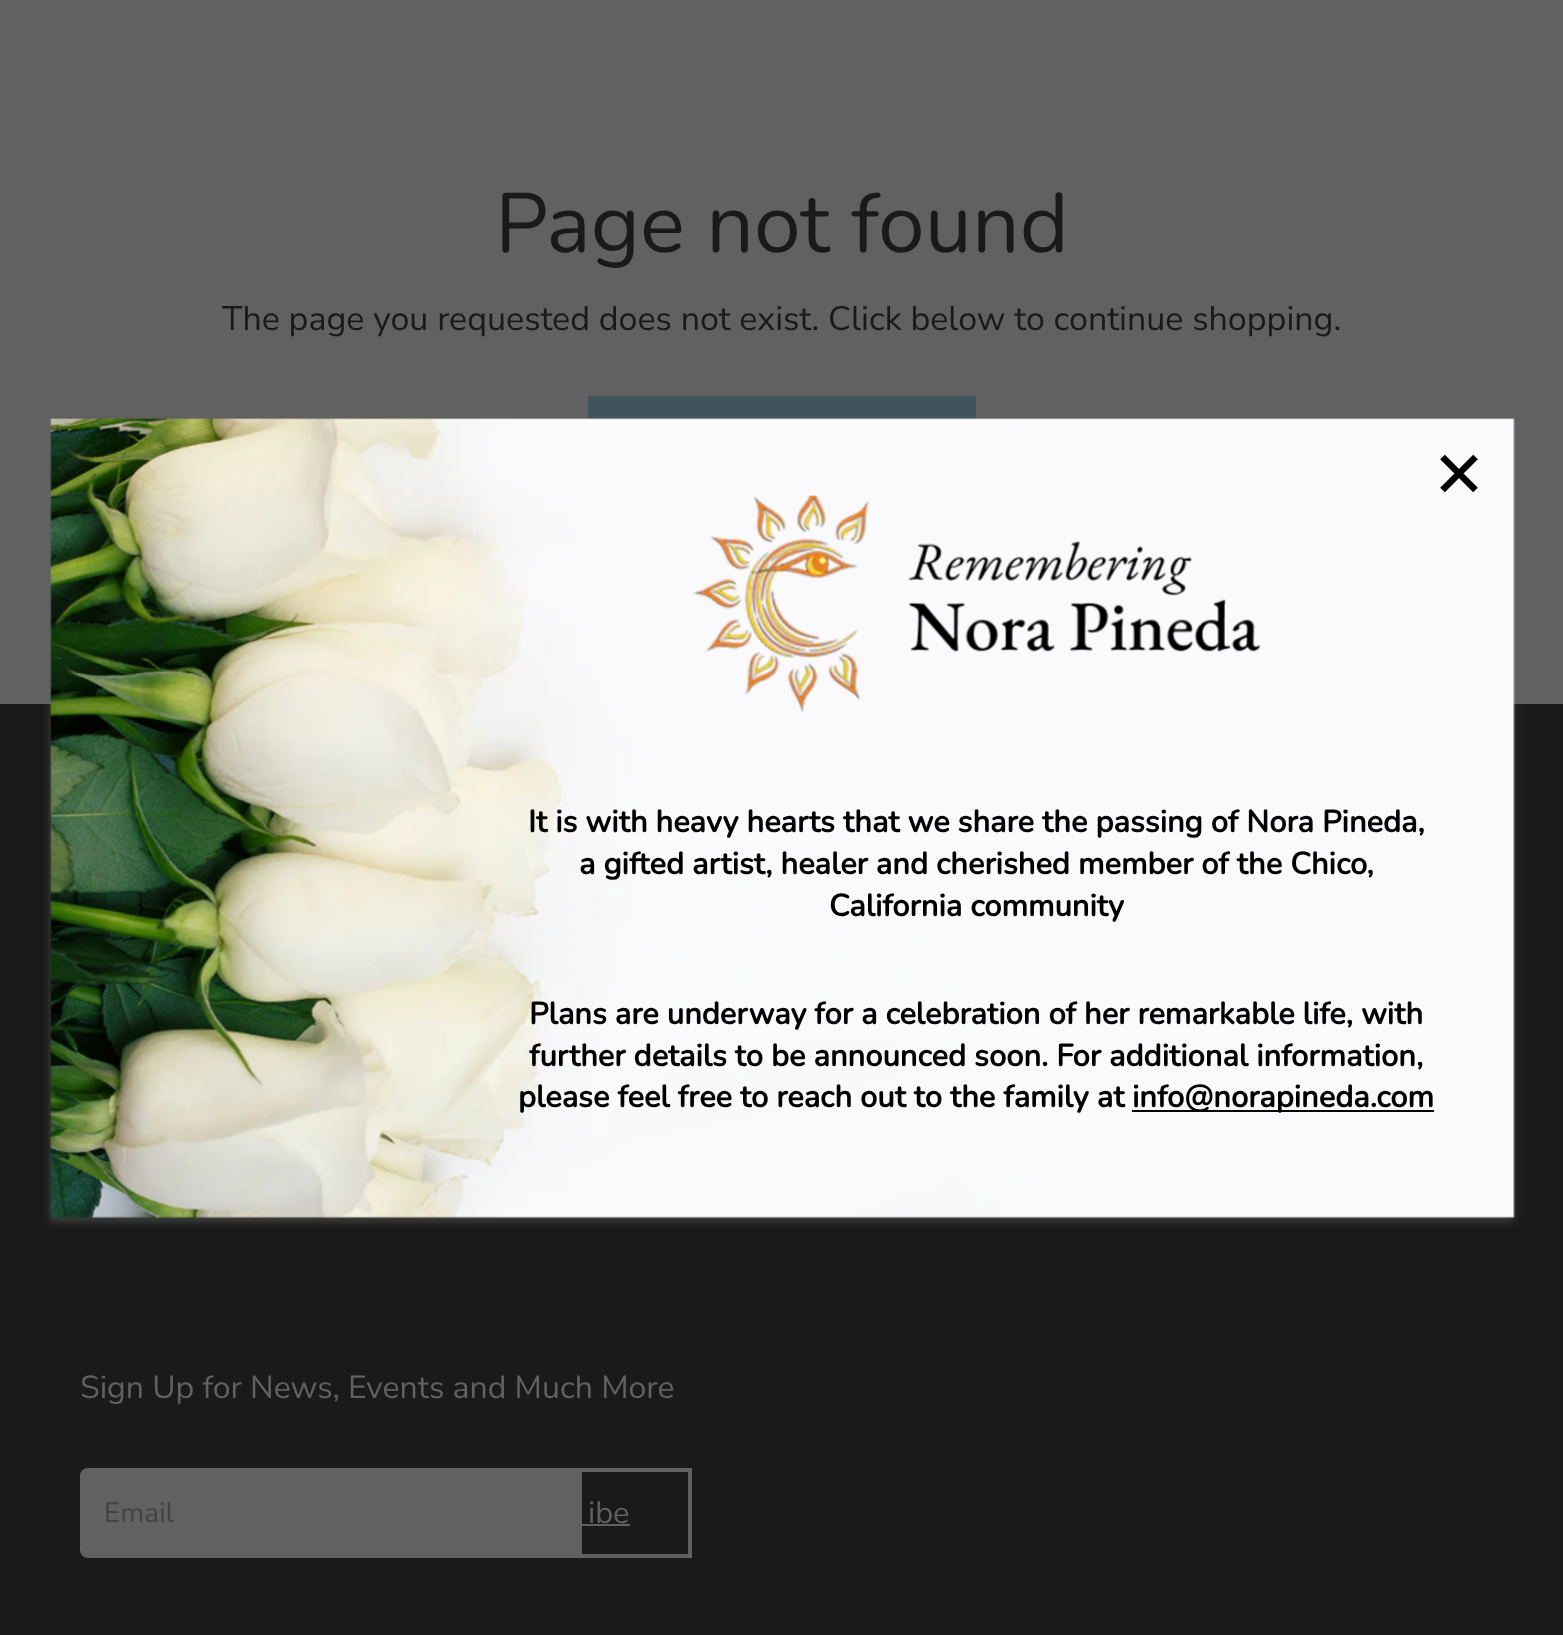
<svg xmlns="http://www.w3.org/2000/svg" width="1563" height="1635">
	<rect width="100%" height="100%" fill="#616161" />
	<text x="495" y="252" font-family="Nunito" font-size="84" fill="#1A1A1A">Page not found</text>
	<text x="222" y="330" font-family="Nunito Sans" font-size="34" fill="#1A1A1A">The page you requested does not exist. Click below to continue shopping.</text>
	<rect x="588" y="396" width="388" height="24" fill="#41535B" />
	<rect x="0" y="704" width="1563" height="931" fill="#1A1A1A" />
	<text x="80" y="1398" font-family="Nunito Sans" font-size="32" fill="#616161">Sign Up for News, Events and Much More</text>
	<path d="M88 1470H580V1556H88C84.5 1556 82 1553.5 82 1550V1476C82 1472.5 84.5 1470 88 1470Z" fill="#616161" stroke="#616161" stroke-width="4" />
	<text x="104" y="1522" font-family="Nunito Sans" font-size="28" fill="#434343">Email</text>
	<rect x="434" y="1470" width="256" height="86" fill="none" stroke="#616161" stroke-width="4" />
	<text x="588" y="1523" font-family="Nunito Sans" font-size="30.8" fill="#616161">ibe</text>
	<rect x="582" y="1524" width="48" height="2" fill="#616161" />
	<rect x="50" y="424" width="1464" height="798" fill="#646464" fill-opacity="0.5" filter="blur(4.5px)" />
	<image x="50" y="418" width="1465" height="800" href="assets/img1.png" />
	<path d="M1442.5 457L1475.5 490M1475.5 457L1442.5 490" fill="none" stroke="#000000" stroke-width="6.6" />
	<image x="693" y="495" width="568" height="218" href="assets/img2.png" />
	<g font-family="Nunito" font-size="30.8" font-weight="700" fill="#000000">
		<text x="528" y="832">It is with heavy hearts that we share the passing of Nora Pineda,</text>
		<text x="579" y="874">a gifted artist, healer and cherished member of the Chico,</text>
		<text x="829" y="916">California community</text>
		<text x="529" y="1024">Plans are underway for a celebration of her remarkable life, with</text>
		<text x="529" y="1066">further details to be announced soon. For additional information,</text>
		<text x="518" y="1107">please feel free to reach out to the family at</text>
	</g>
	<rect x="1132" y="1110" width="302" height="2" fill="#000000" />
	<text x="1132" y="1107" font-family="Nunito" font-size="30.8" font-weight="700" fill="#000000">info@norapineda.com</text>
</svg>
